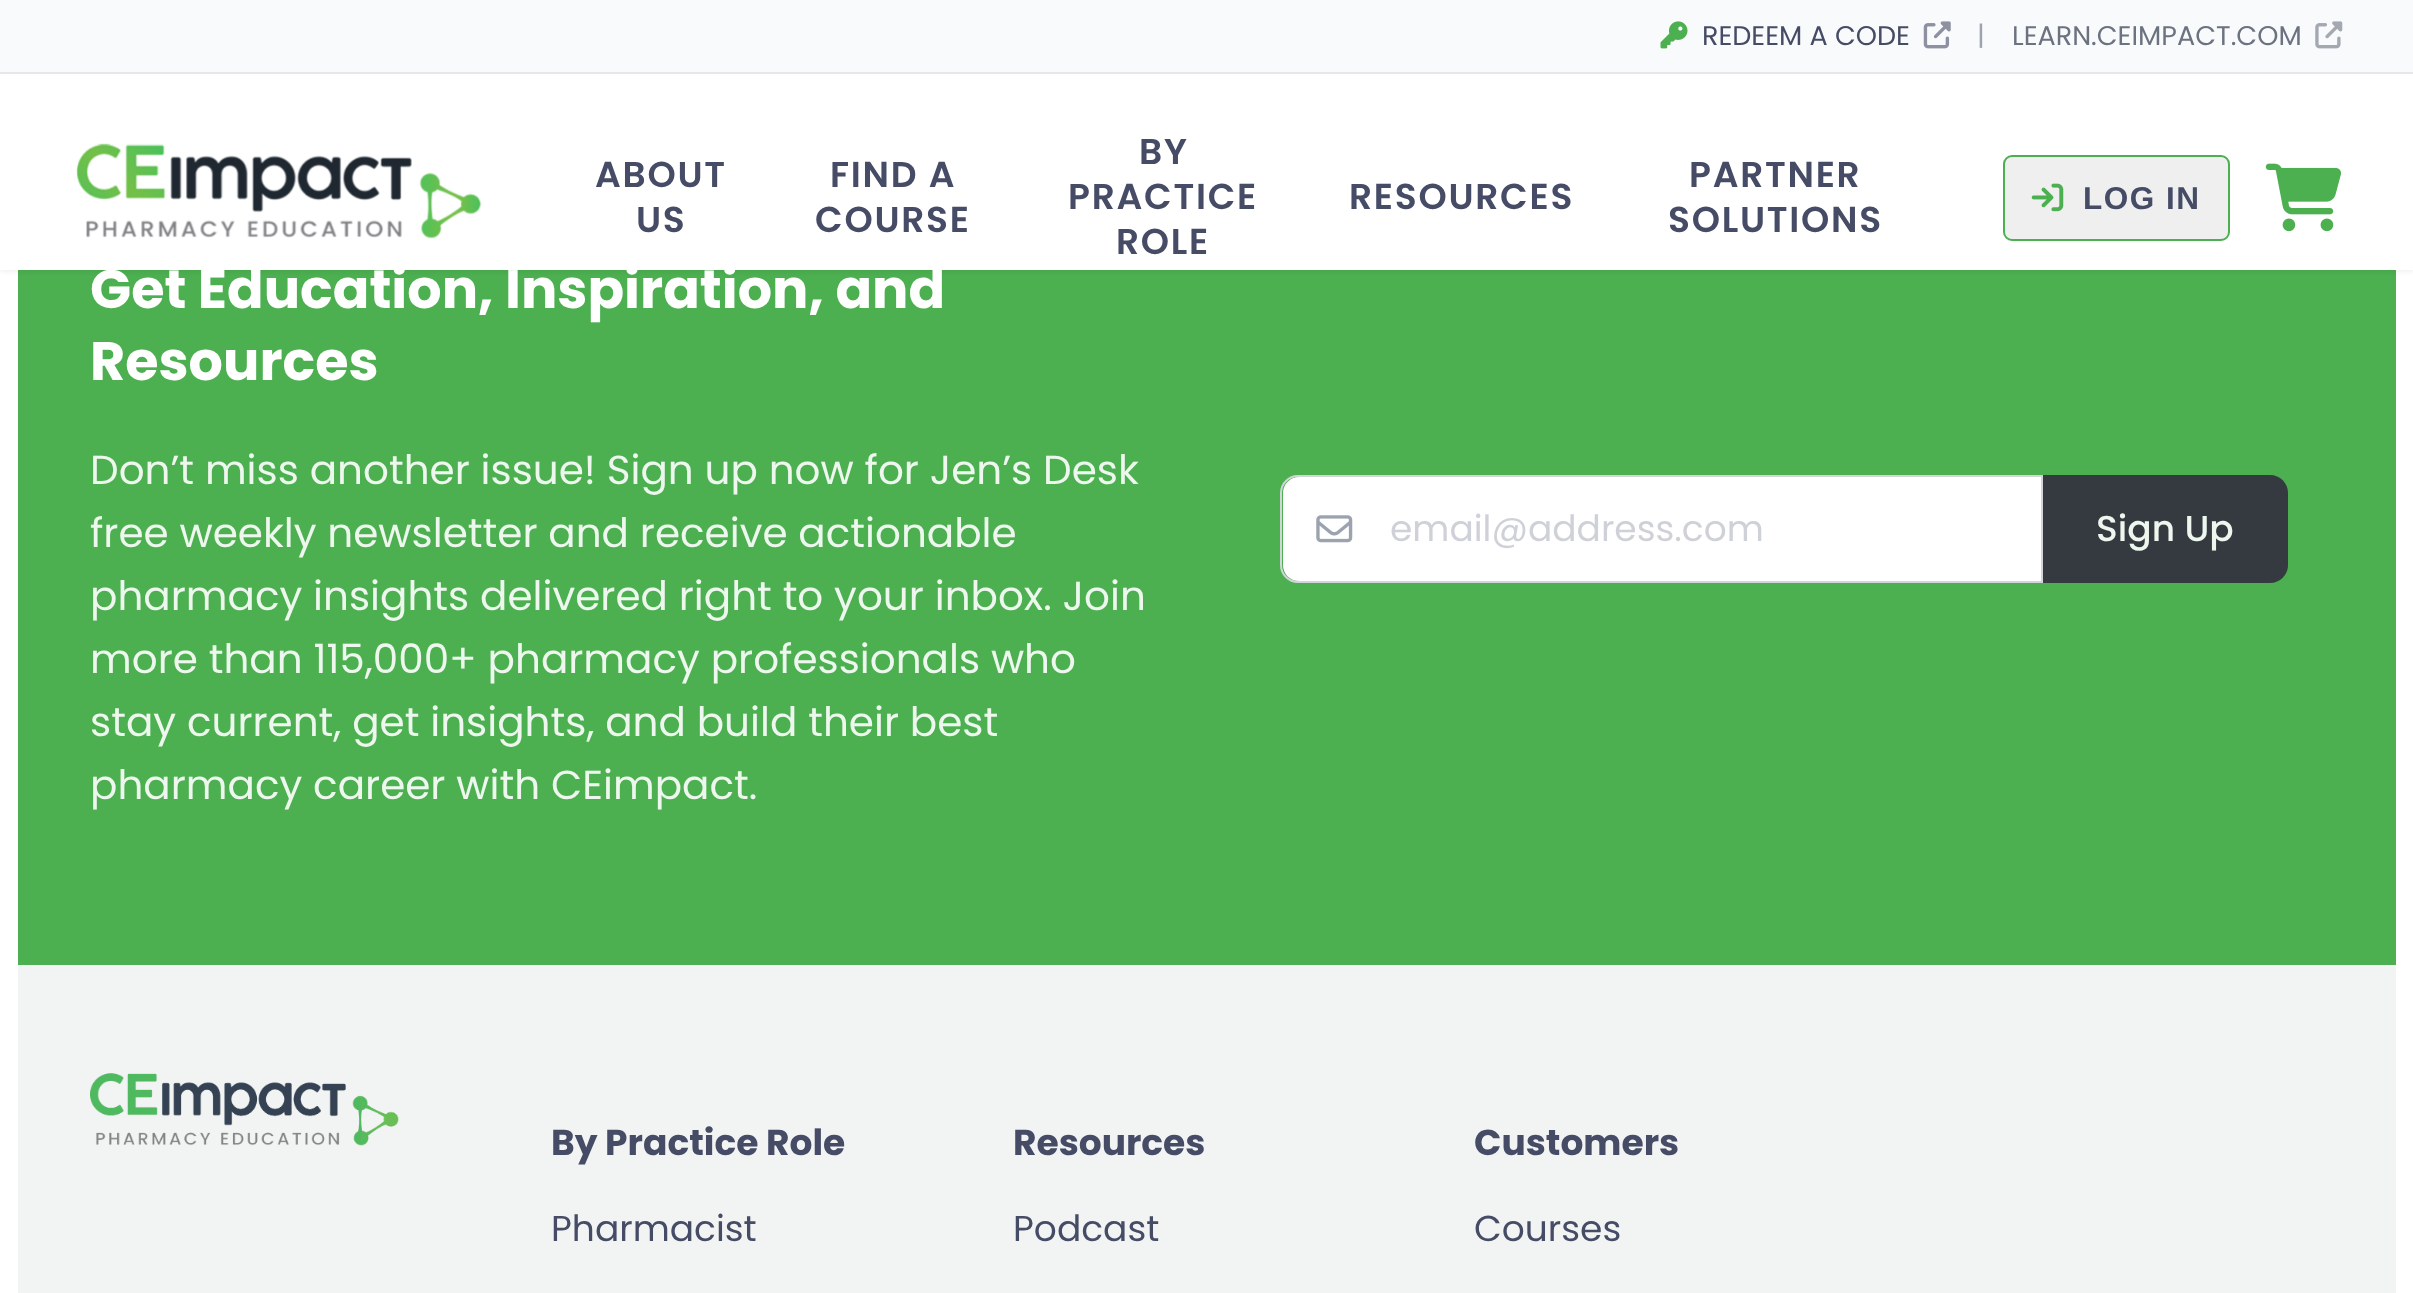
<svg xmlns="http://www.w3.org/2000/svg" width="2413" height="1293">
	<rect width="100%" height="100%" fill="#FFFFFF" />
	<rect x="18" y="270" width="2378" height="695" fill="#4CAF50" />
	<rect x="0" y="74" width="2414" height="198" fill="#000000" fill-opacity="0.05" filter="blur(2px)" />
	<rect x="0" y="0" width="2413" height="72" fill="#F9FAFB" />
	<rect x="0" y="72" width="2413" height="2" fill="#E5E7EB" />
	<image x="1660" y="21" width="28" height="28" href="assets/img1.png" />
	<text x="1702" y="45" font-family="Poppins" font-size="27" fill="#464B66">REDEEM A CODE</text>
	<image x="1923" y="21" width="28" height="28" href="assets/img2.png" />
	<text x="1977" y="45" font-family="Poppins" font-size="27" fill="#9CA3AF">|</text>
	<text x="2012" y="45" font-family="Poppins" font-size="27" fill="#6B7280">LEARN.CEIMPACT.COM</text>
	<image x="2315" y="21" width="28" height="28" href="assets/img3.png" />
	<rect x="0" y="74" width="2413" height="196" fill="#FFFFFF" />
	<image x="76" y="143" width="406" height="96" href="assets/img4.png" />
	<g font-family="Poppins" font-size="36" font-weight="600" letter-spacing="1.75" fill="#464B66">
		<text x="595" y="187">ABOUT</text>
		<text x="636" y="232">US</text>
		<text x="830" y="187">FIND A</text>
		<text x="815" y="232">COURSE</text>
		<text x="1139" y="164">BY</text>
		<text x="1068" y="209">PRACTICE</text>
		<text x="1116" y="254">ROLE</text>
		<text x="1349" y="209">RESOURCES</text>
		<text x="1689" y="187">PARTNER</text>
		<text x="1668" y="232">SOLUTIONS</text>
	</g>
	<rect x="2004" y="156" width="225" height="84" rx="8" fill="#EFEFEF" stroke="#4CAF50" stroke-width="2" />
	<image x="2031" y="183" width="33" height="29" href="assets/img5.png" />
	<text x="2083" y="209" font-family="Liberation Sans" font-size="31.5" font-weight="700" letter-spacing="1.5" fill="#464B66">LOG IN</text>
	<image x="2265" y="163" width="76" height="69" href="assets/img6.png" />
	<g font-family="Poppins" font-size="54" font-weight="700" fill="#FFFFFF">
		<text x="90" y="308">Get Education, Inspiration, and</text>
		<text x="90" y="380">Resources</text>
	</g>
	<g font-family="Poppins" font-size="40.5" fill="#EDF7EE">
		<text x="90" y="484">Don’t miss another issue! Sign up now for Jen’s Desk</text>
		<text x="90" y="547">free weekly newsletter and receive actionable</text>
		<text x="90" y="610">pharmacy insights delivered right to your inbox. Join</text>
		<text x="90" y="673">more than 115,000+ pharmacy professionals who</text>
		<text x="90" y="736">stay current, get insights, and build their best</text>
		<text x="90" y="799">pharmacy career with CEimpact.</text>
	</g>
	<path d="M1299 477H2041V581H1299C1290 581 1283 574 1283 565V493C1283 484 1290 477 1299 477Z" fill="#FFFFFF" />
	<path d="M1298 476H2042V582H1298C1288.5 582 1281 574.5 1281 565V493C1281 483.5 1288.5 476 1298 476Z" fill="none" stroke="#D1D5DB" stroke-width="2" />
	<image x="1316" y="515" width="37" height="28" href="assets/img7.png" />
	<text x="1390" y="541" font-family="Poppins" font-size="36" fill="#CED1D7">email@address.com</text>
	<path d="M2043 475H2270C2280 475 2288 483 2288 493V565C2288 575 2280 583 2270 583H2043Z" fill="#343A40" />
	<text x="2096" y="541" font-family="Poppins" font-size="36" font-weight="500" fill="#EDF7EE">Sign Up</text>
	<rect x="18" y="965" width="2378" height="328" fill="#F2F4F3" />
	<image x="90" y="1073" width="309" height="73" href="assets/img8.png" />
	<text x="551" y="1155" font-family="Poppins" font-size="36" font-weight="700" fill="#464B66">By Practice Role</text>
	<text x="551" y="1241" font-family="Poppins" font-size="36" fill="#464B66">Pharmacist</text>
	<text x="1013" y="1155" font-family="Poppins" font-size="36" font-weight="700" fill="#464B66">Resources</text>
	<text x="1013" y="1241" font-family="Poppins" font-size="36" fill="#464B66">Podcast</text>
	<text x="1474" y="1155" font-family="Poppins" font-size="36" font-weight="700" fill="#464B66">Customers</text>
	<text x="1474" y="1241" font-family="Poppins" font-size="36" fill="#464B66">Courses</text>
</svg>
